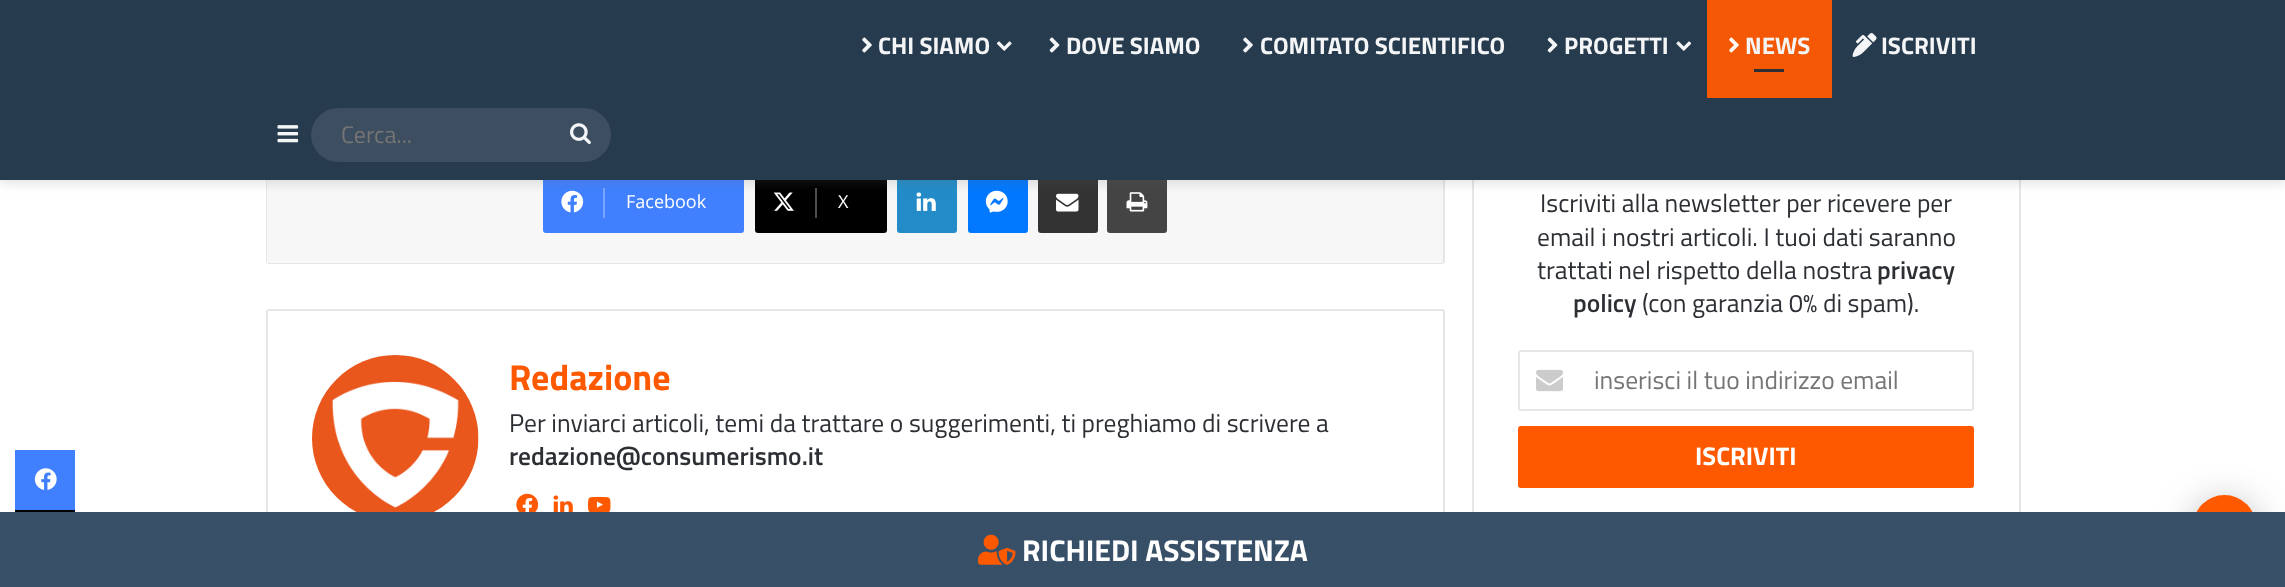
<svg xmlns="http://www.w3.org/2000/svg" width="2285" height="587">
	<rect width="100%" height="100%" fill="#FFFFFF" />
	<rect x="267" y="-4" width="1177" height="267" rx="2" fill="none" stroke="#E6E6E6" stroke-width="2" />
	<rect x="267" y="180" width="1176" height="83" fill="#F7F7F7" />
	<rect x="543" y="173" width="201" height="60" rx="3" fill="#4080FF" />
	<image x="561" y="190" width="23" height="23" href="assets/img9.png" />
	<rect x="603" y="188" width="2" height="30" fill="#79A6FF" />
	<rect x="755" y="173" width="132" height="60" rx="3" fill="#000000" />
	<image x="773" y="192" width="21" height="19" href="assets/img10.png" />
	<rect x="815" y="188" width="2" height="30" fill="#4D4D4D" />
	<rect x="897" y="173" width="60" height="60" rx="3" fill="#238CC8" />
	<image x="916" y="192" width="20" height="19" href="assets/img11.png" />
	<rect x="968" y="173" width="60" height="60" rx="3" fill="#0078FF" />
	<image x="985" y="190" width="23" height="23" href="assets/img12.png" />
	<rect x="1038" y="173" width="60" height="60" rx="3" fill="#333333" />
	<image x="1056" y="193" width="23" height="19" href="assets/img13.png" />
	<rect x="1107" y="173" width="60" height="60" rx="3" fill="#444444" />
	<image x="1126" y="192" width="22" height="20" href="assets/img14.png" />
	<rect x="1473" y="-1" width="547" height="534" fill="none" stroke="#E6E6E6" stroke-width="2" />
	<rect x="0" y="3" width="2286" height="180" fill="#636363" fill-opacity="0.2" filter="blur(6px)" />
	<rect x="0" y="0" width="2285" height="180" fill="#273B4E" />
	<image x="862" y="37" width="10" height="16" href="assets/img1.png" />
	<text x="878" y="54" font-family="Titillium Web" font-size="24" font-weight="700" fill="#F4F5F6">CHI SIAMO</text>
	<image x="996" y="41" width="16" height="10" href="assets/img2.png" />
	<image x="1049" y="37" width="11" height="16" href="assets/img3.png" />
	<text x="1066" y="54" font-family="Titillium Web" font-size="24" font-weight="700" fill="#F4F5F6">DOVE SIAMO</text>
	<image x="1243" y="37" width="10" height="16" href="assets/img1.png" />
	<text x="1260" y="54" font-family="Titillium Web" font-size="24" font-weight="700" fill="#F4F5F6">COMITATO SCIENTIFICO</text>
	<image x="1547" y="37" width="11" height="16" href="assets/img3.png" />
	<text x="1564" y="54" font-family="Titillium Web" font-size="24" font-weight="700" fill="#F4F5F6">PROGETTI</text>
	<image x="1676" y="41" width="16" height="10" href="assets/img4.png" />
	<rect x="1707" y="0" width="125" height="98" fill="#F45804" />
	<image x="1729" y="37" width="10" height="16" href="assets/img5.png" />
	<text x="1745" y="54" font-family="Titillium Web" font-size="24" font-weight="700" fill="#F4F5F6">NEWS</text>
	<rect x="1754" y="69" width="30" height="3" fill="#2C3035" />
	<image x="1852" y="33" width="25" height="24" href="assets/img6.png" />
	<text x="1881" y="54" font-family="Titillium Web" font-size="24" font-weight="700" fill="#F4F5F6">ISCRIVITI</text>
	<image x="277" y="125" width="22" height="18" href="assets/img7.png" />
	<rect x="311" y="108" width="300" height="54" rx="27" fill="#3C4E5F" />
	<text x="341" y="143" font-family="Titillium Web" font-size="24" fill="#757575">Cerca...</text>
	<image x="570" y="123" width="21" height="22" href="assets/img8.png" />
	<g font-family="Open Sans" font-size="18" fill="#FFFFFF">
		<text x="626" y="208">Facebook</text>
		<text x="838" y="208">X</text>
	</g>
	<rect x="267" y="310" width="1177" height="259" rx="2" fill="none" stroke="#E6E6E6" stroke-width="2" />
	<image x="312" y="355" width="167" height="157" href="assets/img15.png" />
	<text x="509" y="390" font-family="Titillium Web" font-size="36" font-weight="700" fill="#FF5900">Redazione</text>
	<text x="509" y="432" font-family="Titillium Web" font-size="25.5" fill="#2C2F34">Per inviarci articoli, temi da trattare o suggerimenti, ti preghiamo di scrivere a</text>
	<text x="509" y="465" font-family="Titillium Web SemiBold" font-size="25.5" font-weight="600" fill="#2C2F34">redazione@consumerismo.it</text>
	<image x="516" y="493" width="23" height="19" href="assets/img16.png" />
	<image x="553" y="495" width="20" height="17" href="assets/img17.png" />
	<image x="588" y="496" width="23" height="16" href="assets/img18.png" />
	<g font-family="Titillium Web" font-size="25.5" fill="#2C2F34">
		<text x="1540" y="212">Iscriviti alla newsletter per ricevere per</text>
		<text x="1537" y="246">email i nostri articoli. I tuoi dati saranno</text>
		<text x="1537" y="279">trattati nel rispetto della nostra</text>
	</g>
	<g font-family="Titillium Web SemiBold" font-size="25.5" font-weight="600" fill="#2C2F34">
		<text x="1877" y="279">privacy</text>
		<text x="1573" y="312">policy</text>
	</g>
	<text x="1642" y="312" font-family="Titillium Web" font-size="25.5" fill="#2C2F34">(con garanzia 0% di spam).</text>
	<rect x="1519" y="351" width="454" height="59" rx="2" fill="none" stroke="#E6E6E6" stroke-width="2" />
	<image x="1536" y="369" width="27" height="23" href="assets/img19.png" />
	<text x="1594" y="389" font-family="Titillium Web" font-size="25.5" fill="#757575">inserisci il tuo indirizzo email</text>
	<rect x="1518" y="426" width="456" height="62" rx="3" fill="#FF5900" />
	<text x="1695" y="465" font-family="Titillium Web" font-size="25.5" font-weight="700" fill="#FFFFFF">ISCRIVITI</text>
	<rect x="15" y="450" width="60" height="60" fill="#4080FF" />
	<image x="34" y="468" width="23" height="22" href="assets/img20.png" />
	<rect x="15" y="510" width="60" height="2" fill="#000000" />
	<rect x="2193" y="503" width="63" height="63" rx="31.5" fill="#000000" fill-opacity="0.3" filter="blur(19px)" />
	<circle cx="2224.5" cy="526.5" r="31.5" fill="#FF5900" />
	<rect x="0" y="512" width="2285" height="75" fill="#375068" />
	<image x="978" y="534" width="38" height="31" href="assets/img21.png" />
	<text x="1022" y="561" font-family="Titillium Web" font-size="30" font-weight="700" fill="#FFFFFF">RICHIEDI ASSISTENZA</text>
</svg>
